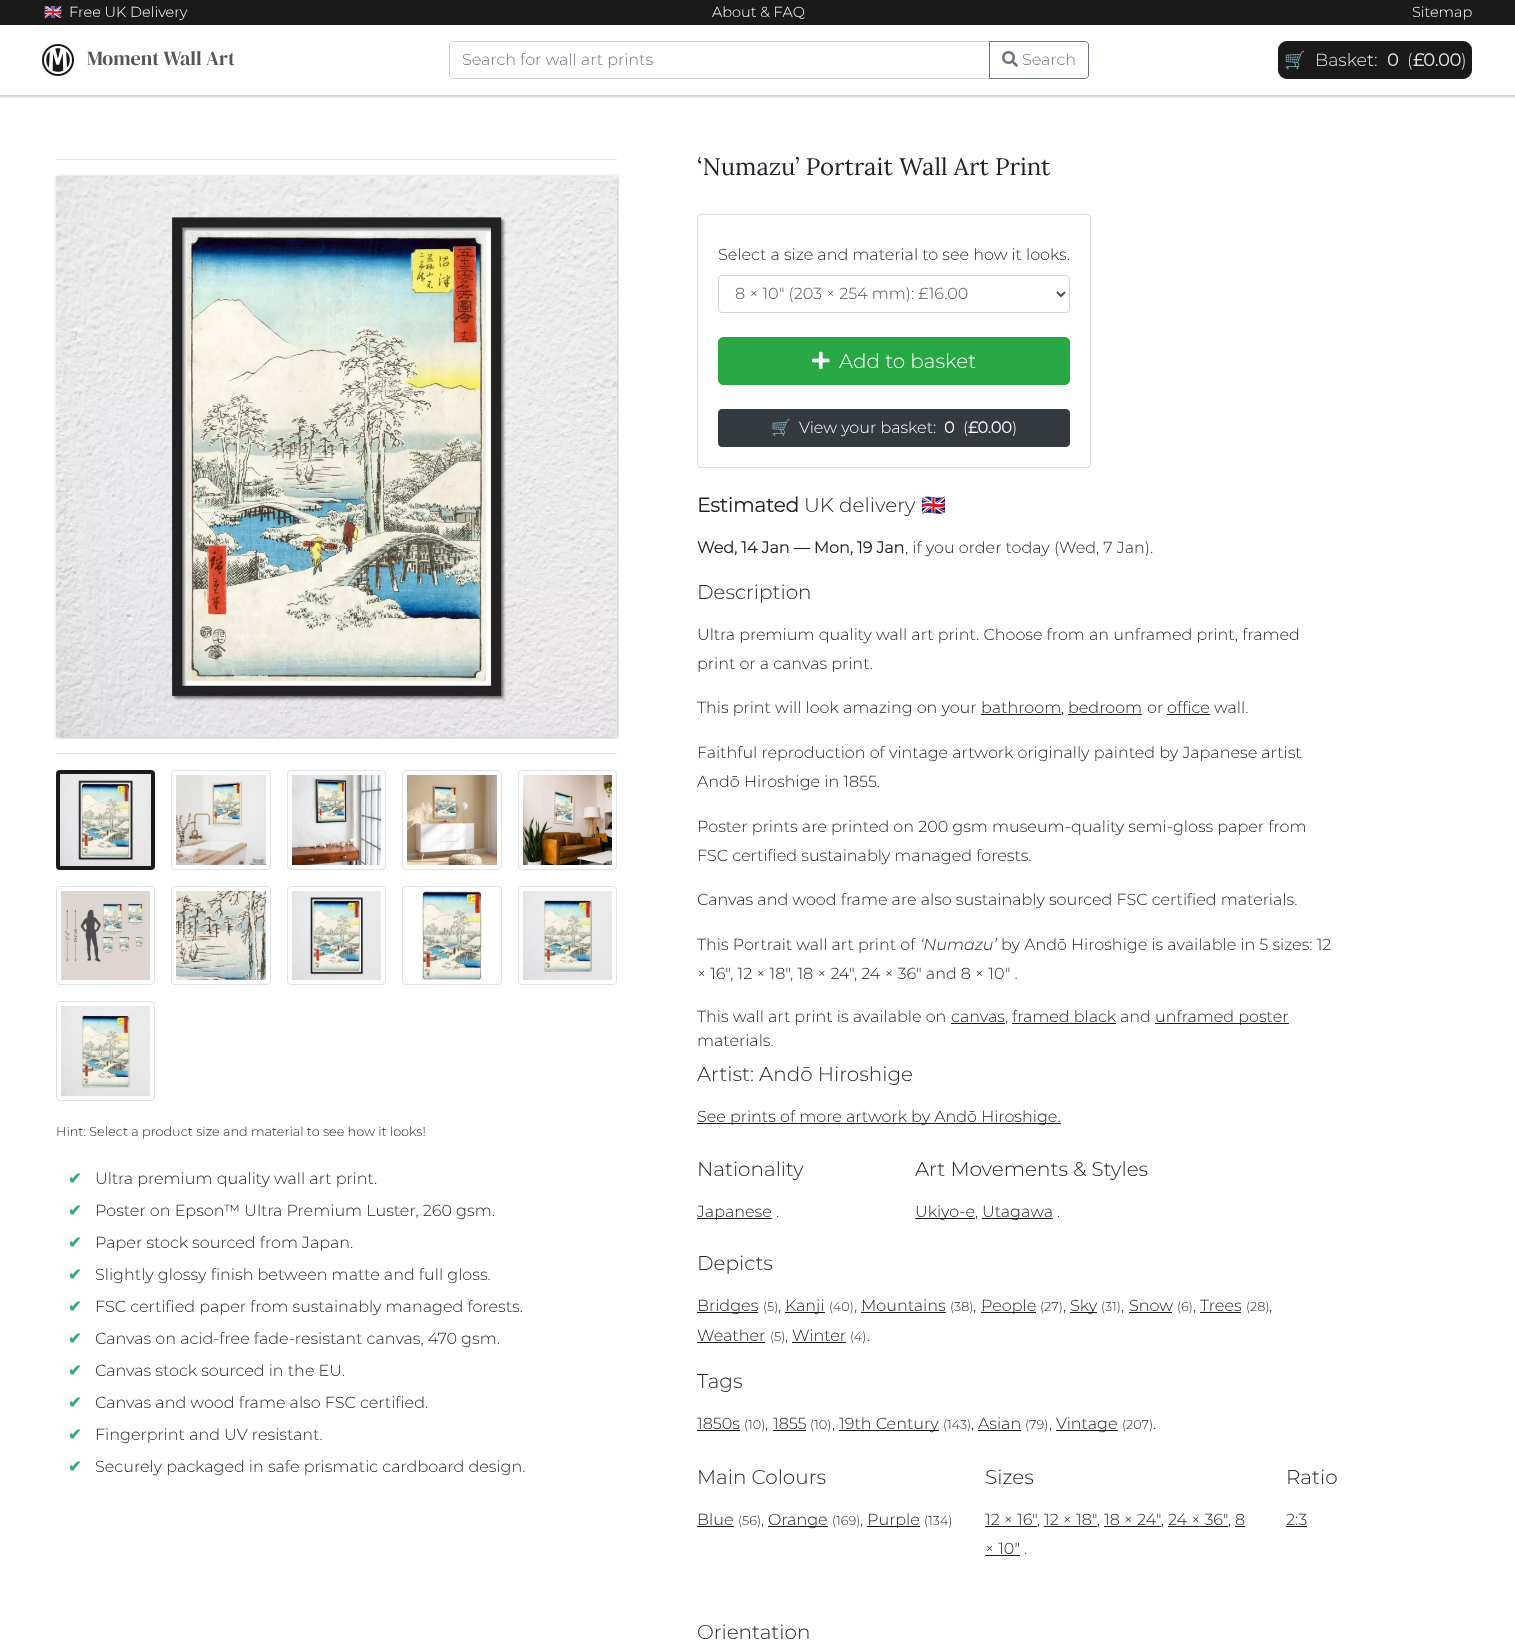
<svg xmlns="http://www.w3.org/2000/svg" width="1515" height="1646">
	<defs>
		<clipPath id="clip1"><rect x="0" y="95" width="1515" height="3" /></clipPath>
	</defs>
	<rect width="100%" height="100%" fill="#FFFFFF" />
	<g clip-path="url(#clip1)">
		<rect x="-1" y="-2" width="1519" height="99" fill="#2A2A2A" fill-opacity="0.25" filter="blur(1px)" />
	</g>
	<rect x="0" y="0" width="1515" height="25" fill="#1A1A1A" />
	<text x="44" y="17" font-family="Noto Color Emoji" font-size="14.5" fill="#FFFFFF">🇬🇧</text>
	<g font-family="Montserrat" font-size="14.5" font-weight="100" fill="#FFFFFF">
		<text x="69" y="17">Free UK Delivery</text>
		<text x="712" y="17">About &amp; FAQ</text>
		<text x="1412" y="17">Sitemap</text>
	</g>
	<image x="42" y="44" width="32" height="32" href="assets/img1.png" />
	<text x="87" y="65" font-family="DM Serif Display" font-size="20" fill="#555555">Moment Wall Art</text>
	<path d="M453 41.5H989.5V78.5H453C451 78.5 449.5 77 449.5 75V45C449.5 43 451 41.5 453 41.5Z" fill="none" stroke="#CED4DA" />
	<text x="462" y="65" font-family="Montserrat" font-size="16" font-weight="100" fill="#6C757D">Search for wall art prints</text>
	<path d="M989.5 41.5H1085C1087 41.5 1088.5 43 1088.5 45V75C1088.5 77 1087 78.5 1085 78.5H989.5Z" fill="none" stroke="#6C757D" />
	<image x="1002" y="51" width="16" height="16" href="assets/img2.png" />
	<text x="1022" y="65" font-family="Montserrat" font-size="16" font-weight="100" fill="#6C757D">Search</text>
	<rect x="1278" y="41" width="194" height="38" rx="9" fill="#1A1A1A" />
	<rect x="1279" y="42" width="192" height="36" rx="8" fill="none" stroke="#1A1A1A" stroke-opacity="0.3" stroke-width="2" />
	<text x="1284" y="66" font-family="Noto Color Emoji" font-size="17.5" fill="#E6E6E6">🛒</text>
	<text x="1315" y="66" font-family="Montserrat" font-size="17.5" font-weight="100" fill="#E6E6E6">Basket:</text>
	<text x="1387" y="66" font-family="Montserrat" font-size="17.5" font-weight="700" fill="#E6E6E6">0</text>
	<text x="1407" y="66" font-family="Montserrat" font-size="17.5" font-weight="100" fill="#E6E6E6">(</text>
	<text x="1413" y="66" font-family="Montserrat" font-size="17.5" font-weight="700" fill="#E6E6E6">£0.00</text>
	<text x="1461" y="66" font-family="Montserrat" font-size="17.5" font-weight="100" fill="#E6E6E6">)</text>
	<rect x="56" y="159" width="561" height="1" fill="#E6E6E6" />
	<image x="54" y="174" width="565" height="565" href="assets/img3.png" />
	<rect x="56" y="753" width="561" height="1" fill="#E6E6E6" />
	<rect x="58" y="772" width="95" height="96" rx="2" fill="none" stroke="#1A1A1A" stroke-width="4" />
	<image x="60" y="774" width="91" height="92" href="assets/img4.png" />
	<rect x="171.5" y="770.5" width="99" height="99" rx="3.5" fill="none" stroke="#DEE2E6" />
	<image x="176" y="775" width="90" height="90" href="assets/img5.png" />
	<rect x="287.5" y="770.5" width="98" height="99" rx="3.5" fill="none" stroke="#DEE2E6" />
	<image x="292" y="775" width="89" height="90" href="assets/img6.png" />
	<rect x="402.5" y="770.5" width="99" height="99" rx="3.5" fill="none" stroke="#DEE2E6" />
	<image x="407" y="775" width="90" height="90" href="assets/img7.png" />
	<rect x="518.5" y="770.5" width="98" height="99" rx="3.5" fill="none" stroke="#DEE2E6" />
	<image x="523" y="775" width="89" height="90" href="assets/img8.png" />
	<rect x="56.5" y="886.5" width="98" height="98" rx="3.5" fill="none" stroke="#DEE2E6" />
	<image x="61" y="891" width="89" height="89" href="assets/img9.png" />
	<rect x="171.5" y="886.5" width="99" height="98" rx="3.5" fill="none" stroke="#DEE2E6" />
	<image x="176" y="891" width="90" height="89" href="assets/img10.png" />
	<rect x="287.5" y="886.5" width="98" height="98" rx="3.5" fill="none" stroke="#DEE2E6" />
	<image x="292" y="891" width="89" height="89" href="assets/img11.png" />
	<rect x="402.5" y="886.5" width="99" height="98" rx="3.5" fill="none" stroke="#DEE2E6" />
	<image x="422" y="891" width="60" height="89" href="assets/img12.png" />
	<rect x="518.5" y="886.5" width="98" height="98" rx="3.5" fill="none" stroke="#DEE2E6" />
	<image x="523" y="891" width="89" height="89" href="assets/img13.png" />
	<rect x="56.5" y="1001.5" width="98" height="99" rx="3.5" fill="none" stroke="#DEE2E6" />
	<image x="61" y="1006" width="89" height="90" href="assets/img14.png" />
	<text x="56" y="1136" font-family="Montserrat" font-size="12.8" font-weight="100" fill="#212529">Hint: Select a product size and material to see how it looks!</text>
	<text x="68" y="1184" font-family="DejaVu Sans" font-size="16" font-weight="700" fill="#32AB70">✔</text>
	<text x="95" y="1184" font-family="Montserrat" font-size="16" font-weight="100" fill="#212529">Ultra premium quality wall art print.</text>
	<text x="68" y="1216" font-family="DejaVu Sans" font-size="16" font-weight="700" fill="#32AB70">✔</text>
	<text x="95" y="1216" font-family="Montserrat" font-size="16" font-weight="100" fill="#212529">Poster on Epson™ Ultra Premium Luster, 260 gsm.</text>
	<text x="68" y="1248" font-family="DejaVu Sans" font-size="16" font-weight="700" fill="#32AB70">✔</text>
	<text x="95" y="1248" font-family="Montserrat" font-size="16" font-weight="100" fill="#212529">Paper stock sourced from Japan.</text>
	<text x="68" y="1280" font-family="DejaVu Sans" font-size="16" font-weight="700" fill="#32AB70">✔</text>
	<text x="95" y="1280" font-family="Montserrat" font-size="16" font-weight="100" fill="#212529">Slightly glossy finish between matte and full gloss.</text>
	<text x="68" y="1312" font-family="DejaVu Sans" font-size="16" font-weight="700" fill="#32AB70">✔</text>
	<text x="95" y="1312" font-family="Montserrat" font-size="16" font-weight="100" fill="#212529">FSC certified paper from sustainably managed forests.</text>
	<text x="68" y="1344" font-family="DejaVu Sans" font-size="16" font-weight="700" fill="#32AB70">✔</text>
	<text x="95" y="1344" font-family="Montserrat" font-size="16" font-weight="100" fill="#212529">Canvas on acid-free fade-resistant canvas, 470 gsm.</text>
	<text x="68" y="1376" font-family="DejaVu Sans" font-size="16" font-weight="700" fill="#32AB70">✔</text>
	<text x="95" y="1376" font-family="Montserrat" font-size="16" font-weight="100" fill="#212529">Canvas stock sourced in the EU.</text>
	<text x="68" y="1408" font-family="DejaVu Sans" font-size="16" font-weight="700" fill="#32AB70">✔</text>
	<text x="95" y="1408" font-family="Montserrat" font-size="16" font-weight="100" fill="#212529">Canvas and wood frame also FSC certified.</text>
	<text x="68" y="1440" font-family="DejaVu Sans" font-size="16" font-weight="700" fill="#32AB70">✔</text>
	<text x="95" y="1440" font-family="Montserrat" font-size="16" font-weight="100" fill="#212529">Fingerprint and UV resistant.</text>
	<text x="68" y="1472" font-family="DejaVu Sans" font-size="16" font-weight="700" fill="#32AB70">✔</text>
	<text x="95" y="1472" font-family="Montserrat" font-size="16" font-weight="100" fill="#212529">Securely packaged in safe prismatic cardboard design.</text>
	<text x="697" y="175" font-family="Lora" font-size="24" fill="#212529">‘Numazu’ Portrait Wall Art Print</text>
	<rect x="697.5" y="214.5" width="393" height="253" rx="3.5" fill="none" stroke="#DFDFDF" />
	<text x="718" y="260" font-family="Montserrat" font-size="16" font-weight="100" fill="#212529">Select a size and material to see how it looks.</text>
	<rect x="718.5" y="275.5" width="351" height="37" rx="3.5" fill="none" stroke="#CED4DA" />
	<path d="M1057 292L1061 296L1065 292" fill="none" stroke="#495057" stroke-width="2" />
	<text x="735" y="299" font-family="Montserrat" font-size="16" font-weight="100" fill="#495057">8 × 10″ (203 × 254 mm): £16.00</text>
	<rect x="718.5" y="337.5" width="351" height="47" rx="4.5" fill="#28A745" stroke="#28A745" />
	<image x="812" y="351" width="18" height="19" href="assets/img15.png" />
	<text x="839" y="368" font-family="Montserrat" font-size="20" font-weight="100" fill="#FFFFFF">Add to basket</text>
	<rect x="718.5" y="409.5" width="351" height="37" rx="3.5" fill="#343A40" stroke="#343A40" />
	<text x="771" y="433" font-family="Noto Color Emoji" font-size="16" fill="#FFFFFF">🛒</text>
	<text x="799" y="433" font-family="Montserrat" font-size="16" font-weight="100" fill="#FFFFFF">View your basket:</text>
	<text x="944" y="433" font-family="Montserrat" font-size="16" font-weight="700" fill="#FFFFFF">0</text>
	<text x="963" y="433" font-family="Montserrat" font-size="16" font-weight="100" fill="#FFFFFF">(</text>
	<text x="968" y="433" font-family="Montserrat" font-size="16" font-weight="700" fill="#FFFFFF">£0.00</text>
	<text x="1012" y="433" font-family="Montserrat" font-size="16" font-weight="100" fill="#FFFFFF">)</text>
	<text x="697" y="512" font-family="Montserrat" font-size="20" font-weight="700" fill="#212529">Estimated</text>
	<text x="804" y="512" font-family="Montserrat" font-size="20" font-weight="100" fill="#212529">UK delivery</text>
	<text x="921" y="512" font-family="Noto Color Emoji" font-size="20" fill="#212529">🇬🇧</text>
	<text x="697" y="553" font-family="Montserrat" font-size="16" font-weight="700" fill="#212529">Wed, 14 Jan — Mon, 19 Jan</text>
	<text x="905" y="553" font-family="Montserrat" font-size="16" font-weight="100" fill="#212529">, if you order today (Wed, 7 Jan).</text>
	<text x="697" y="599" font-family="Montserrat" font-size="20" font-weight="100" fill="#212529">Description</text>
	<g font-family="Montserrat" font-size="16" font-weight="100" fill="#212529">
		<text x="697" y="640">Ultra premium quality wall art print. Choose from an unframed print, framed</text>
		<text x="697" y="669">print or a canvas print.</text>
		<text x="697" y="713">This print will look amazing on your</text>
	</g>
	<text x="981" y="713" font-family="Montserrat" font-size="16" font-weight="100" fill="#1A1A1A">bathroom</text>
	<rect x="981" y="714" width="80" height="1" fill="#1A1A1A" />
	<text x="1061" y="713" font-family="Montserrat" font-size="16" font-weight="100" fill="#212529">,</text>
	<text x="1068" y="713" font-family="Montserrat" font-size="16" font-weight="100" fill="#1A1A1A">bedroom</text>
	<rect x="1068" y="714" width="74" height="1" fill="#1A1A1A" />
	<text x="1147" y="713" font-family="Montserrat" font-size="16" font-weight="100" fill="#212529">or</text>
	<text x="1167" y="713" font-family="Montserrat" font-size="16" font-weight="100" fill="#1A1A1A">office</text>
	<rect x="1167" y="714" width="43" height="1" fill="#1A1A1A" />
	<g font-family="Montserrat" font-size="16" font-weight="100" fill="#212529">
		<text x="1214" y="713">wall.</text>
		<text x="697" y="758">Faithful reproduction of vintage artwork originally painted by Japanese artist</text>
		<text x="697" y="787">Andō Hiroshige in 1855.</text>
		<text x="697" y="832">Poster prints are printed on 200 gsm museum-quality semi-gloss paper from</text>
		<text x="697" y="861">FSC certified sustainably managed forests.</text>
		<text x="697" y="905">Canvas and wood frame are also sustainably sourced FSC certified materials.</text>
		<text x="697" y="950">This Portrait wall art print of</text>
	</g>
	<text x="920" y="950" font-family="Montserrat" font-size="16" font-weight="100" font-style="italic" fill="#212529">‘Numazu’</text>
	<g font-family="Montserrat" font-size="16" font-weight="100" fill="#212529">
		<text x="1001" y="950">by Andō Hiroshige is available in 5 sizes: 12</text>
		<text x="697" y="979">× 16″, 12 × 18″, 18 × 24″, 24 × 36″ and 8 × 10″ .</text>
		<text x="697" y="1022">This wall art print is available on</text>
	</g>
	<text x="951" y="1022" font-family="Montserrat" font-size="16" font-weight="100" fill="#1A1A1A">canvas</text>
	<rect x="951" y="1023" width="54" height="1" fill="#1A1A1A" />
	<text x="1005" y="1022" font-family="Montserrat" font-size="16" font-weight="100" fill="#212529">,</text>
	<text x="1012" y="1022" font-family="Montserrat" font-size="16" font-weight="100" fill="#1A1A1A">framed black</text>
	<rect x="1012" y="1023" width="104" height="1" fill="#1A1A1A" />
	<text x="1120" y="1022" font-family="Montserrat" font-size="16" font-weight="100" fill="#212529">and</text>
	<rect x="1155" y="1023" width="134" height="1" fill="#1A1A1A" />
	<text x="1155" y="1022" font-family="Montserrat" font-size="16" font-weight="100" fill="#1A1A1A">unframed poster</text>
	<text x="697" y="1046" font-family="Montserrat" font-size="16" font-weight="100" fill="#212529">materials.</text>
	<text x="697" y="1081" font-family="Montserrat" font-size="20" font-weight="100" fill="#212529">Artist: Andō Hiroshige</text>
	<rect x="697" y="1123" width="364" height="1" fill="#1A1A1A" />
	<text x="697" y="1122" font-family="Montserrat" font-size="16" font-weight="100" fill="#1A1A1A">See prints of more artwork by Andō Hiroshige.</text>
	<text x="697" y="1176" font-family="Montserrat" font-size="20" font-weight="100" fill="#212529">Nationality</text>
	<rect x="697" y="1218" width="75" height="1" fill="#1A1A1A" />
	<text x="697" y="1217" font-family="Montserrat" font-size="16" font-weight="100" fill="#1A1A1A">Japanese</text>
	<text x="776" y="1217" font-family="Montserrat" font-size="16" font-weight="100" fill="#212529">.</text>
	<text x="915" y="1176" font-family="Montserrat" font-size="20" font-weight="100" fill="#212529">Art Movements &amp; Styles</text>
	<rect x="915" y="1218" width="60" height="1" fill="#1A1A1A" />
	<text x="915" y="1217" font-family="Montserrat" font-size="16" font-weight="100" fill="#1A1A1A">Ukiyo-e</text>
	<text x="975" y="1217" font-family="Montserrat" font-size="16" font-weight="100" fill="#212529">,</text>
	<rect x="982" y="1218" width="71" height="1" fill="#1A1A1A" />
	<text x="982" y="1217" font-family="Montserrat" font-size="16" font-weight="100" fill="#1A1A1A">Utagawa</text>
	<text x="1057" y="1217" font-family="Montserrat" font-size="16" font-weight="100" fill="#212529">.</text>
	<text x="697" y="1270" font-family="Montserrat" font-size="20" font-weight="100" fill="#212529">Depicts</text>
	<rect x="697" y="1312" width="61" height="1" fill="#1A1A1A" />
	<text x="697" y="1311" font-family="Montserrat" font-size="16" font-weight="100" fill="#1A1A1A">Bridges</text>
	<text x="763" y="1311" font-family="Montserrat" font-size="12.8" font-weight="100" fill="#212529">(5)</text>
	<text x="778" y="1311" font-family="Montserrat" font-size="16" font-weight="100" fill="#212529">,</text>
	<rect x="785" y="1312" width="40" height="1" fill="#1A1A1A" />
	<text x="785" y="1311" font-family="Montserrat" font-size="16" font-weight="100" fill="#1A1A1A">Kanji</text>
	<text x="829" y="1311" font-family="Montserrat" font-size="12.8" font-weight="100" fill="#212529">(40)</text>
	<text x="854" y="1311" font-family="Montserrat" font-size="16" font-weight="100" fill="#212529">,</text>
	<text x="861" y="1311" font-family="Montserrat" font-size="16" font-weight="100" fill="#1A1A1A">Mountains</text>
	<rect x="861" y="1312" width="85" height="1" fill="#1A1A1A" />
	<text x="950" y="1311" font-family="Montserrat" font-size="12.8" font-weight="100" fill="#212529">(38)</text>
	<text x="973" y="1311" font-family="Montserrat" font-size="16" font-weight="100" fill="#212529">,</text>
	<rect x="981" y="1312" width="55" height="1" fill="#1A1A1A" />
	<text x="981" y="1311" font-family="Montserrat" font-size="16" font-weight="100" fill="#1A1A1A">People</text>
	<text x="1040" y="1311" font-family="Montserrat" font-size="12.8" font-weight="100" fill="#212529">(27)</text>
	<text x="1063" y="1311" font-family="Montserrat" font-size="16" font-weight="100" fill="#212529">,</text>
	<rect x="1070" y="1312" width="27" height="1" fill="#1A1A1A" />
	<text x="1070" y="1311" font-family="Montserrat" font-size="16" font-weight="100" fill="#1A1A1A">Sky</text>
	<text x="1101" y="1311" font-family="Montserrat" font-size="12.8" font-weight="100" fill="#212529">(31)</text>
	<text x="1121" y="1311" font-family="Montserrat" font-size="16" font-weight="100" fill="#212529">,</text>
	<text x="1129" y="1311" font-family="Montserrat" font-size="16" font-weight="100" fill="#1A1A1A">Snow</text>
	<rect x="1129" y="1312" width="43" height="1" fill="#1A1A1A" />
	<text x="1177" y="1311" font-family="Montserrat" font-size="12.8" font-weight="100" fill="#212529">(6)</text>
	<text x="1193" y="1311" font-family="Montserrat" font-size="16" font-weight="100" fill="#212529">,</text>
	<text x="1200" y="1311" font-family="Montserrat" font-size="16" font-weight="100" fill="#1A1A1A">Trees</text>
	<rect x="1200" y="1312" width="41" height="1" fill="#1A1A1A" />
	<text x="1246" y="1311" font-family="Montserrat" font-size="12.8" font-weight="100" fill="#212529">(28)</text>
	<text x="1269" y="1311" font-family="Montserrat" font-size="16" font-weight="100" fill="#212529">,</text>
	<text x="697" y="1341" font-family="Montserrat" font-size="16" font-weight="100" fill="#1A1A1A">Weather</text>
	<rect x="697" y="1342" width="68" height="1" fill="#1A1A1A" />
	<text x="770" y="1341" font-family="Montserrat" font-size="12.8" font-weight="100" fill="#212529">(5)</text>
	<text x="785" y="1341" font-family="Montserrat" font-size="16" font-weight="100" fill="#212529">,</text>
	<text x="792" y="1341" font-family="Montserrat" font-size="16" font-weight="100" fill="#1A1A1A">Winter</text>
	<rect x="792" y="1342" width="54" height="1" fill="#1A1A1A" />
	<text x="850" y="1341" font-family="Montserrat" font-size="12.8" font-weight="100" fill="#212529">(4)</text>
	<text x="867" y="1341" font-family="Montserrat" font-size="16" font-weight="100" fill="#212529">.</text>
	<text x="697" y="1388" font-family="Montserrat" font-size="20" font-weight="100" fill="#212529">Tags</text>
	<text x="697" y="1429" font-family="Montserrat" font-size="16" font-weight="100" fill="#1A1A1A">1850s</text>
	<rect x="697" y="1430" width="43" height="1" fill="#1A1A1A" />
	<text x="744" y="1429" font-family="Montserrat" font-size="12.8" font-weight="100" fill="#212529">(10)</text>
	<text x="765" y="1429" font-family="Montserrat" font-size="16" font-weight="100" fill="#212529">,</text>
	<text x="773" y="1429" font-family="Montserrat" font-size="16" font-weight="100" fill="#1A1A1A">1855</text>
	<rect x="773" y="1430" width="33" height="1" fill="#1A1A1A" />
	<text x="810" y="1429" font-family="Montserrat" font-size="12.8" font-weight="100" fill="#212529">(10)</text>
	<text x="832" y="1429" font-family="Montserrat" font-size="16" font-weight="100" fill="#212529">,</text>
	<rect x="839" y="1430" width="100" height="1" fill="#1A1A1A" />
	<text x="839" y="1429" font-family="Montserrat" font-size="16" font-weight="100" fill="#1A1A1A">19th Century</text>
	<text x="943" y="1429" font-family="Montserrat" font-size="12.8" font-weight="100" fill="#212529">(143)</text>
	<text x="971" y="1429" font-family="Montserrat" font-size="16" font-weight="100" fill="#212529">,</text>
	<text x="978" y="1429" font-family="Montserrat" font-size="16" font-weight="100" fill="#1A1A1A">Asian</text>
	<rect x="978" y="1430" width="43" height="1" fill="#1A1A1A" />
	<text x="1025" y="1429" font-family="Montserrat" font-size="12.8" font-weight="100" fill="#212529">(79)</text>
	<text x="1049" y="1429" font-family="Montserrat" font-size="16" font-weight="100" fill="#212529">,</text>
	<rect x="1056" y="1430" width="62" height="1" fill="#1A1A1A" />
	<text x="1056" y="1429" font-family="Montserrat" font-size="16" font-weight="100" fill="#1A1A1A">Vintage</text>
	<text x="1122" y="1429" font-family="Montserrat" font-size="12.8" font-weight="100" fill="#212529">(207)</text>
	<text x="1153" y="1429" font-family="Montserrat" font-size="16" font-weight="100" fill="#212529">.</text>
	<text x="697" y="1484" font-family="Montserrat" font-size="20" font-weight="100" fill="#212529">Main Colours</text>
	<text x="697" y="1525" font-family="Montserrat" font-size="16" font-weight="100" fill="#1A1A1A">Blue</text>
	<rect x="697" y="1526" width="37" height="1" fill="#1A1A1A" />
	<text x="738" y="1525" font-family="Montserrat" font-size="12.8" font-weight="100" fill="#212529">(56)</text>
	<text x="761" y="1525" font-family="Montserrat" font-size="16" font-weight="100" fill="#212529">,</text>
	<rect x="768" y="1526" width="60" height="1" fill="#1A1A1A" />
	<text x="768" y="1525" font-family="Montserrat" font-size="16" font-weight="100" fill="#1A1A1A">Orange</text>
	<text x="832" y="1525" font-family="Montserrat" font-size="12.8" font-weight="100" fill="#212529">(169)</text>
	<text x="860" y="1525" font-family="Montserrat" font-size="16" font-weight="100" fill="#212529">,</text>
	<rect x="867" y="1526" width="53" height="1" fill="#1A1A1A" />
	<text x="867" y="1525" font-family="Montserrat" font-size="16" font-weight="100" fill="#1A1A1A">Purple</text>
	<text x="924" y="1525" font-family="Montserrat" font-size="12.8" font-weight="100" fill="#212529">(134)</text>
	<text x="985" y="1484" font-family="Montserrat" font-size="20" font-weight="100" fill="#212529">Sizes</text>
	<text x="985" y="1525" font-family="Montserrat" font-size="16" font-weight="100" fill="#1A1A1A">12 × 16″</text>
	<rect x="985" y="1526" width="52" height="1" fill="#1A1A1A" />
	<text x="1037" y="1525" font-family="Montserrat" font-size="16" font-weight="100" fill="#212529">,</text>
	<text x="1044" y="1525" font-family="Montserrat" font-size="16" font-weight="100" fill="#1A1A1A">12 × 18″</text>
	<rect x="1044" y="1526" width="53" height="1" fill="#1A1A1A" />
	<text x="1097" y="1525" font-family="Montserrat" font-size="16" font-weight="100" fill="#212529">,</text>
	<text x="1104" y="1525" font-family="Montserrat" font-size="16" font-weight="100" fill="#1A1A1A">18 × 24″</text>
	<rect x="1104" y="1526" width="57" height="1" fill="#1A1A1A" />
	<text x="1161" y="1525" font-family="Montserrat" font-size="16" font-weight="100" fill="#212529">,</text>
	<text x="1168" y="1525" font-family="Montserrat" font-size="16" font-weight="100" fill="#1A1A1A">24 × 36″</text>
	<rect x="1168" y="1526" width="60" height="1" fill="#1A1A1A" />
	<text x="1228" y="1525" font-family="Montserrat" font-size="16" font-weight="100" fill="#212529">,</text>
	<text x="1235" y="1525" font-family="Montserrat" font-size="16" font-weight="100" fill="#1A1A1A">8</text>
	<rect x="1235" y="1526" width="10" height="1" fill="#1A1A1A" />
	<text x="985" y="1554" font-family="Montserrat" font-size="16" font-weight="100" fill="#1A1A1A">× 10″</text>
	<rect x="985" y="1555" width="35" height="1" fill="#1A1A1A" />
	<text x="1024" y="1554" font-family="Montserrat" font-size="16" font-weight="100" fill="#212529">.</text>
	<text x="1286" y="1484" font-family="Montserrat" font-size="20" font-weight="100" fill="#212529">Ratio</text>
	<text x="1286" y="1525" font-family="Montserrat" font-size="16" font-weight="100" fill="#1A1A1A">2:3</text>
	<rect x="1286" y="1526" width="21" height="1" fill="#1A1A1A" />
	<text x="697" y="1639" font-family="Montserrat" font-size="20" font-weight="100" fill="#212529">Orientation</text>
</svg>
